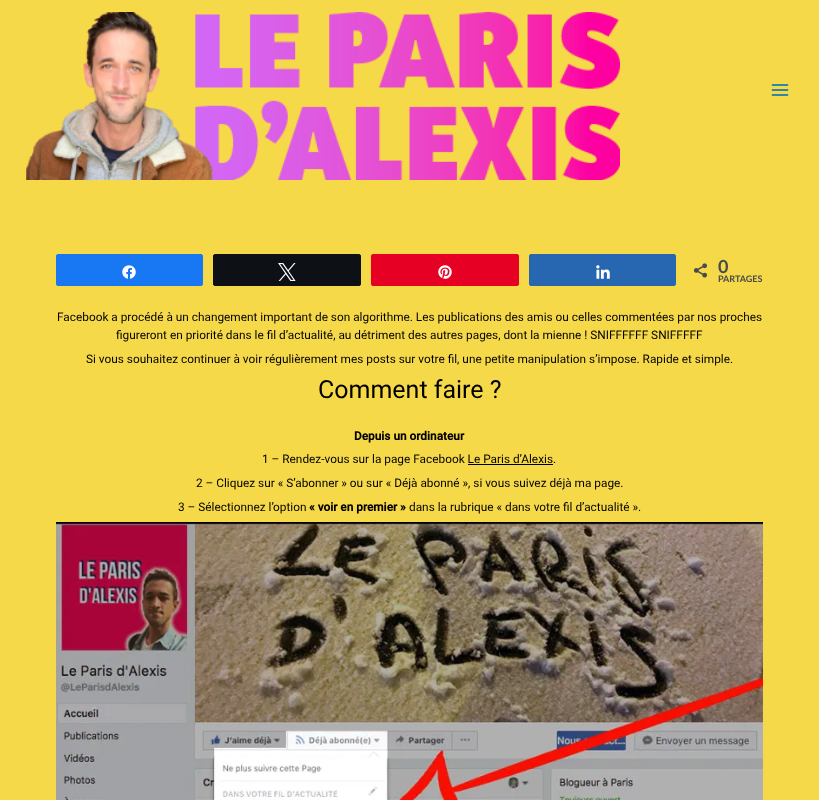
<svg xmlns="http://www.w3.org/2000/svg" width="819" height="800">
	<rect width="100%" height="100%" fill="#F6D949" />
	<image x="26" y="12" width="594" height="168" href="assets/img1.png" />
	<image x="771" y="84" width="18" height="12" href="assets/img2.png" />
	<rect x="56.5" y="254.5" width="146" height="31" rx="1.5" fill="#1877F2" stroke="#1877F2" />
	<image x="122" y="265" width="14" height="14" href="assets/img3.png" />
	<rect x="213.5" y="254.5" width="147" height="31" rx="1.5" fill="#0D1014" stroke="#0D1014" />
	<image x="278" y="263" width="18" height="18" href="assets/img4.png" />
	<rect x="371.5" y="254.5" width="147" height="31" rx="1.5" fill="#E60023" stroke="#E60023" />
	<image x="438" y="265" width="14" height="14" href="assets/img5.png" />
	<rect x="529.5" y="254.5" width="146" height="31" rx="1.5" fill="#2767B1" stroke="#2767B1" />
	<image x="596" y="265" width="14" height="14" href="assets/img6.png" />
	<image x="693" y="263" width="14" height="15" href="assets/img7.png" />
	<text x="718" y="273" font-family="Lato" font-size="18" font-weight="700" fill="#474B4D">0</text>
	<text x="718" y="282" font-family="Lato" font-size="9" font-weight="700" fill="#474B4D">PARTAGES</text>
	<g font-family="Roboto" font-size="11.85" fill="#000000">
		<text x="57" y="321">Facebook a procédé à un changement important de son algorithme. Les publications des amis ou celles commentées par nos proches</text>
		<text x="116" y="339">figureront en priorité dans le fil d’actualité, au détriment des autres pages, dont la mienne ! SNIFFFFFF SNIFFFFF</text>
		<text x="86" y="363">Si vous souhaitez continuer à voir régulièrement mes posts sur votre fil, une petite manipulation s’impose. Rapide et simple.</text>
	</g>
	<text x="318" y="398" font-family="Roboto" font-size="25" fill="#000000">Comment faire ?</text>
	<text x="354" y="440" font-family="Roboto" font-size="11.85" font-weight="700" fill="#000000">Depuis un ordinateur</text>
	<text x="262" y="463" font-family="Roboto" font-size="11.85" fill="#000000">1 – Rendez-vous sur la page Facebook Le Paris d’Alexis.</text>
	<rect x="468" y="464" width="85" height="1" fill="#000000" />
	<g font-family="Roboto" font-size="11.85" fill="#000000">
		<text x="196" y="487">2 – Cliquez sur « S’abonner » ou sur « Déjà abonné », si vous suivez déjà ma page.</text>
		<text x="178" y="511">3 – Sélectionnez l’option</text>
	</g>
	<text x="309" y="511" font-family="Roboto" font-size="11.85" font-weight="700" fill="#000000">« voir en premier »</text>
	<text x="409" y="511" font-family="Roboto" font-size="11.85" fill="#000000">dans la rubrique « dans votre fil d’actualité ».</text>
	<image x="56" y="522" width="707" height="278" href="assets/img8.png" />
</svg>
